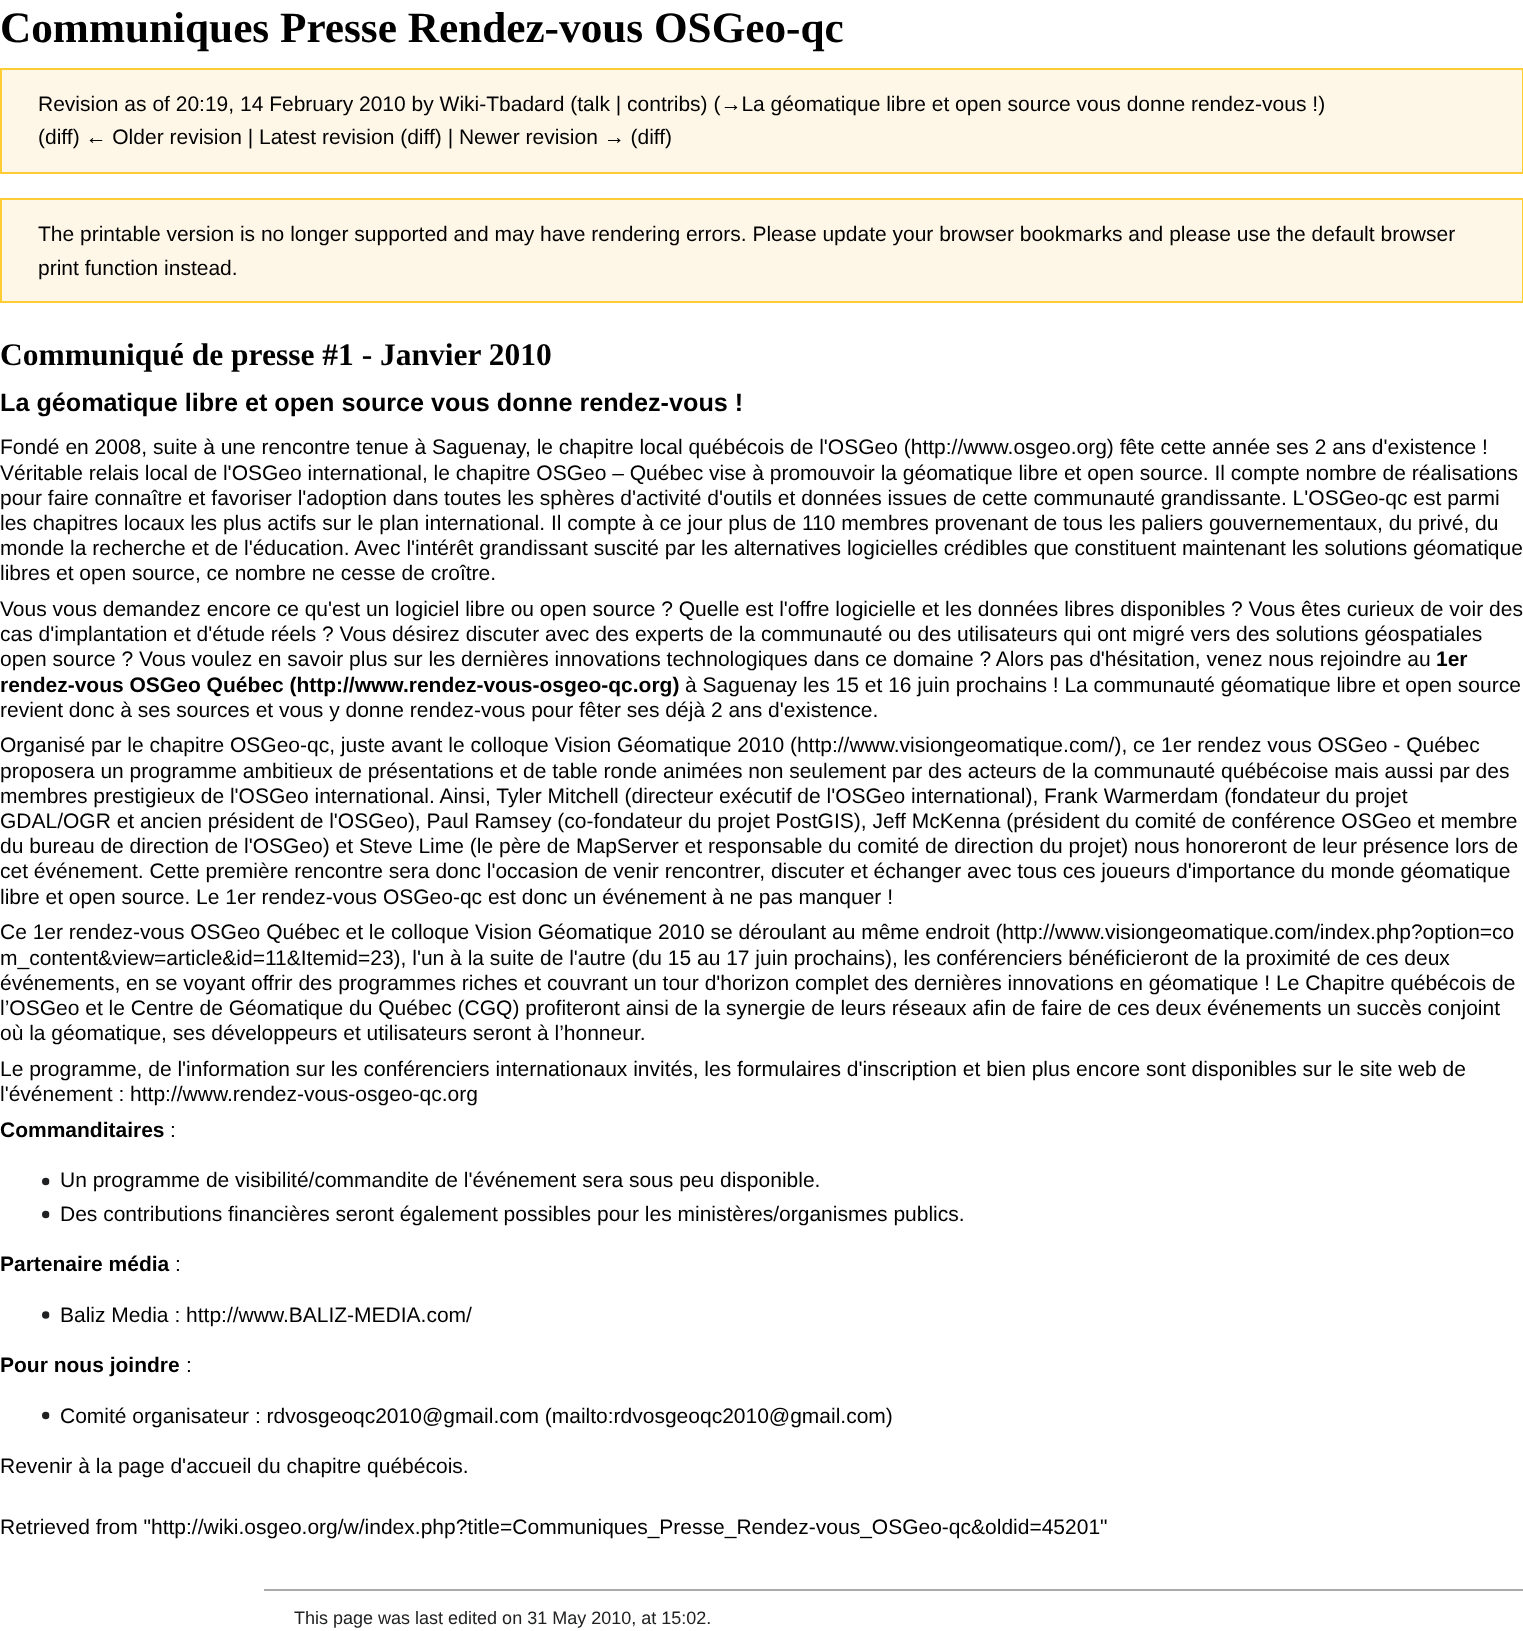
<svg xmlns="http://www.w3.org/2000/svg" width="1523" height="1631">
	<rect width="100%" height="100%" fill="#FFFFFF" />
	<text x="0" y="42" font-family="Liberation Serif" font-size="43.25" font-weight="700" fill="#000000">Communiques Presse Rendez-vous OSGeo-qc</text>
	<rect x="1" y="69" width="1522" height="104" fill="#FEF6E7" stroke="#FFCC33" stroke-width="2" />
	<g font-family="Liberation Sans" font-size="21" fill="#000000">
		<text x="38" y="111">Revision as of 20:19, 14 February 2010 by Wiki-Tbadard (talk | contribs) (→La géomatique libre et open source vous donne rendez-vous !)</text>
		<text x="38" y="144">(diff) ← Older revision | Latest revision (diff) | Newer revision → (diff)</text>
	</g>
	<rect x="1" y="199" width="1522" height="103" fill="#FEF6E7" stroke="#FFCC33" stroke-width="2" />
	<g font-family="Liberation Sans" font-size="21" fill="#000000">
		<text x="38" y="241">The printable version is no longer supported and may have rendering errors. Please update your browser bookmarks and please use the default browser</text>
		<text x="38" y="275">print function instead.</text>
	</g>
	<text x="0" y="365" font-family="Liberation Serif" font-size="31.5" font-weight="700" fill="#000000">Communiqué de presse #1 - Janvier 2010</text>
	<text x="0" y="411" font-family="Liberation Sans" font-size="25.2" font-weight="700" fill="#000000">La géomatique libre et open source vous donne rendez-vous !</text>
	<g font-family="Liberation Sans" font-size="21" fill="#000000">
		<text x="0" y="454">Fondé en 2008, suite à une rencontre tenue à Saguenay, le chapitre local québécois de l'OSGeo (http://www.osgeo.org) fête cette année ses 2 ans d'existence !</text>
		<text x="0" y="480">Véritable relais local de l'OSGeo international, le chapitre OSGeo – Québec vise à promouvoir la géomatique libre et open source. Il compte nombre de réalisations</text>
		<text x="0" y="505">pour faire connaître et favoriser l'adoption dans toutes les sphères d'activité d'outils et données issues de cette communauté grandissante. L'OSGeo-qc est parmi</text>
		<text x="0" y="530">les chapitres locaux les plus actifs sur le plan international. Il compte à ce jour plus de 110 membres provenant de tous les paliers gouvernementaux, du privé, du</text>
		<text x="0" y="555">monde la recherche et de l'éducation. Avec l'intérêt grandissant suscité par les alternatives logicielles crédibles que constituent maintenant les solutions géomatique</text>
		<text x="0" y="580">libres et open source, ce nombre ne cesse de croître.</text>
		<text x="0" y="616">Vous vous demandez encore ce qu'est un logiciel libre ou open source ? Quelle est l'offre logicielle et les données libres disponibles ? Vous êtes curieux de voir des</text>
		<text x="0" y="641">cas d'implantation et d'étude réels ? Vous désirez discuter avec des experts de la communauté ou des utilisateurs qui ont migré vers des solutions géospatiales</text>
		<text x="0" y="666">open source ? Vous voulez en savoir plus sur les dernières innovations technologiques dans ce domaine ? Alors pas d'hésitation, venez nous rejoindre au</text>
	</g>
	<g font-family="Liberation Sans" font-size="21" font-weight="700" fill="#000000">
		<text x="1436" y="666">1er</text>
		<text x="0" y="692">rendez-vous OSGeo Québec (http://www.rendez-vous-osgeo-qc.org)</text>
	</g>
	<g font-family="Liberation Sans" font-size="21" fill="#000000">
		<text x="685" y="692">à Saguenay les 15 et 16 juin prochains ! La communauté géomatique libre et open source</text>
		<text x="0" y="717">revient donc à ses sources et vous y donne rendez-vous pour fêter ses déjà 2 ans d'existence.</text>
		<text x="0" y="752">Organisé par le chapitre OSGeo-qc, juste avant le colloque Vision Géomatique 2010 (http://www.visiongeomatique.com/), ce 1er rendez vous OSGeo - Québec</text>
		<text x="0" y="778">proposera un programme ambitieux de présentations et de table ronde animées non seulement par des acteurs de la communauté québécoise mais aussi par des</text>
		<text x="0" y="803">membres prestigieux de l'OSGeo international. Ainsi, Tyler Mitchell (directeur exécutif de l'OSGeo international), Frank Warmerdam (fondateur du projet</text>
		<text x="0" y="828">GDAL/OGR et ancien président de l'OSGeo), Paul Ramsey (co-fondateur du projet PostGIS), Jeff McKenna (président du comité de conférence OSGeo et membre</text>
		<text x="0" y="853">du bureau de direction de l'OSGeo) et Steve Lime (le père de MapServer et responsable du comité de direction du projet) nous honoreront de leur présence lors de</text>
		<text x="0" y="878">cet événement. Cette première rencontre sera donc l'occasion de venir rencontrer, discuter et échanger avec tous ces joueurs d'importance du monde géomatique</text>
		<text x="0" y="904">libre et open source. Le 1er rendez-vous OSGeo-qc est donc un événement à ne pas manquer !</text>
		<text x="0" y="939">Ce 1er rendez-vous OSGeo Québec et le colloque Vision Géomatique 2010 se déroulant au même endroit (http://www.visiongeomatique.com/index.php?option=co</text>
		<text x="0" y="965">m_content&amp;view=article&amp;id=11&amp;Itemid=23), l'un à la suite de l'autre (du 15 au 17 juin prochains), les conférenciers bénéficieront de la proximité de ces deux</text>
		<text x="0" y="990">événements, en se voyant offrir des programmes riches et couvrant un tour d'horizon complet des dernières innovations en géomatique ! Le Chapitre québécois de</text>
		<text x="0" y="1015">l’OSGeo et le Centre de Géomatique du Québec (CGQ) profiteront ainsi de la synergie de leurs réseaux afin de faire de ces deux événements un succès conjoint</text>
		<text x="0" y="1040">où la géomatique, ses développeurs et utilisateurs seront à l’honneur.</text>
		<text x="0" y="1076">Le programme, de l'information sur les conférenciers internationaux invités, les formulaires d'inscription et bien plus encore sont disponibles sur le site web de</text>
		<text x="0" y="1101">l'événement : http://www.rendez-vous-osgeo-qc.org</text>
	</g>
	<text x="0" y="1137" font-family="Liberation Sans" font-size="21" font-weight="700" fill="#000000">Commanditaires</text>
	<text x="170" y="1137" font-family="Liberation Sans" font-size="21" fill="#000000">:</text>
	<image x="42" y="1177" width="8" height="9" href="assets/img1.png" />
	<text x="60" y="1187" font-family="Liberation Sans" font-size="21" fill="#000000">Un programme de visibilité/commandite de l'événement sera sous peu disponible.</text>
	<image x="42" y="1210" width="8" height="9" href="assets/img1.png" />
	<text x="60" y="1221" font-family="Liberation Sans" font-size="21" fill="#000000">Des contributions financières seront également possibles pour les ministères/organismes publics.</text>
	<text x="0" y="1271" font-family="Liberation Sans" font-size="21" font-weight="700" fill="#000000">Partenaire média</text>
	<text x="175" y="1271" font-family="Liberation Sans" font-size="21" fill="#000000">:</text>
	<image x="42" y="1311" width="8" height="8" href="assets/img2.png" />
	<text x="60" y="1322" font-family="Liberation Sans" font-size="21" fill="#000000">Baliz Media : http://www.BALIZ-MEDIA.com/</text>
	<text x="0" y="1372" font-family="Liberation Sans" font-size="21" font-weight="700" fill="#000000">Pour nous joindre</text>
	<text x="186" y="1372" font-family="Liberation Sans" font-size="21" fill="#000000">:</text>
	<image x="42" y="1411" width="8" height="9" href="assets/img1.png" />
	<g font-family="Liberation Sans" font-size="21" fill="#000000">
		<text x="60" y="1423">Comité organisateur : rdvosgeoqc2010@gmail.com (mailto:rdvosgeoqc2010@gmail.com)</text>
		<text x="0" y="1473">Revenir à la page d'accueil du chapitre québécois.</text>
		<text x="0" y="1534">Retrieved from "http://wiki.osgeo.org/w/index.php?title=Communiques_Presse_Rendez-vous_OSGeo-qc&amp;oldid=45201"</text>
	</g>
	<rect x="264" y="1589" width="1259" height="2" fill="#AAAAAA" />
	<text x="294" y="1624" font-family="Liberation Sans" font-size="18" fill="#202122">This page was last edited on 31 May 2010, at 15:02.</text>
</svg>
